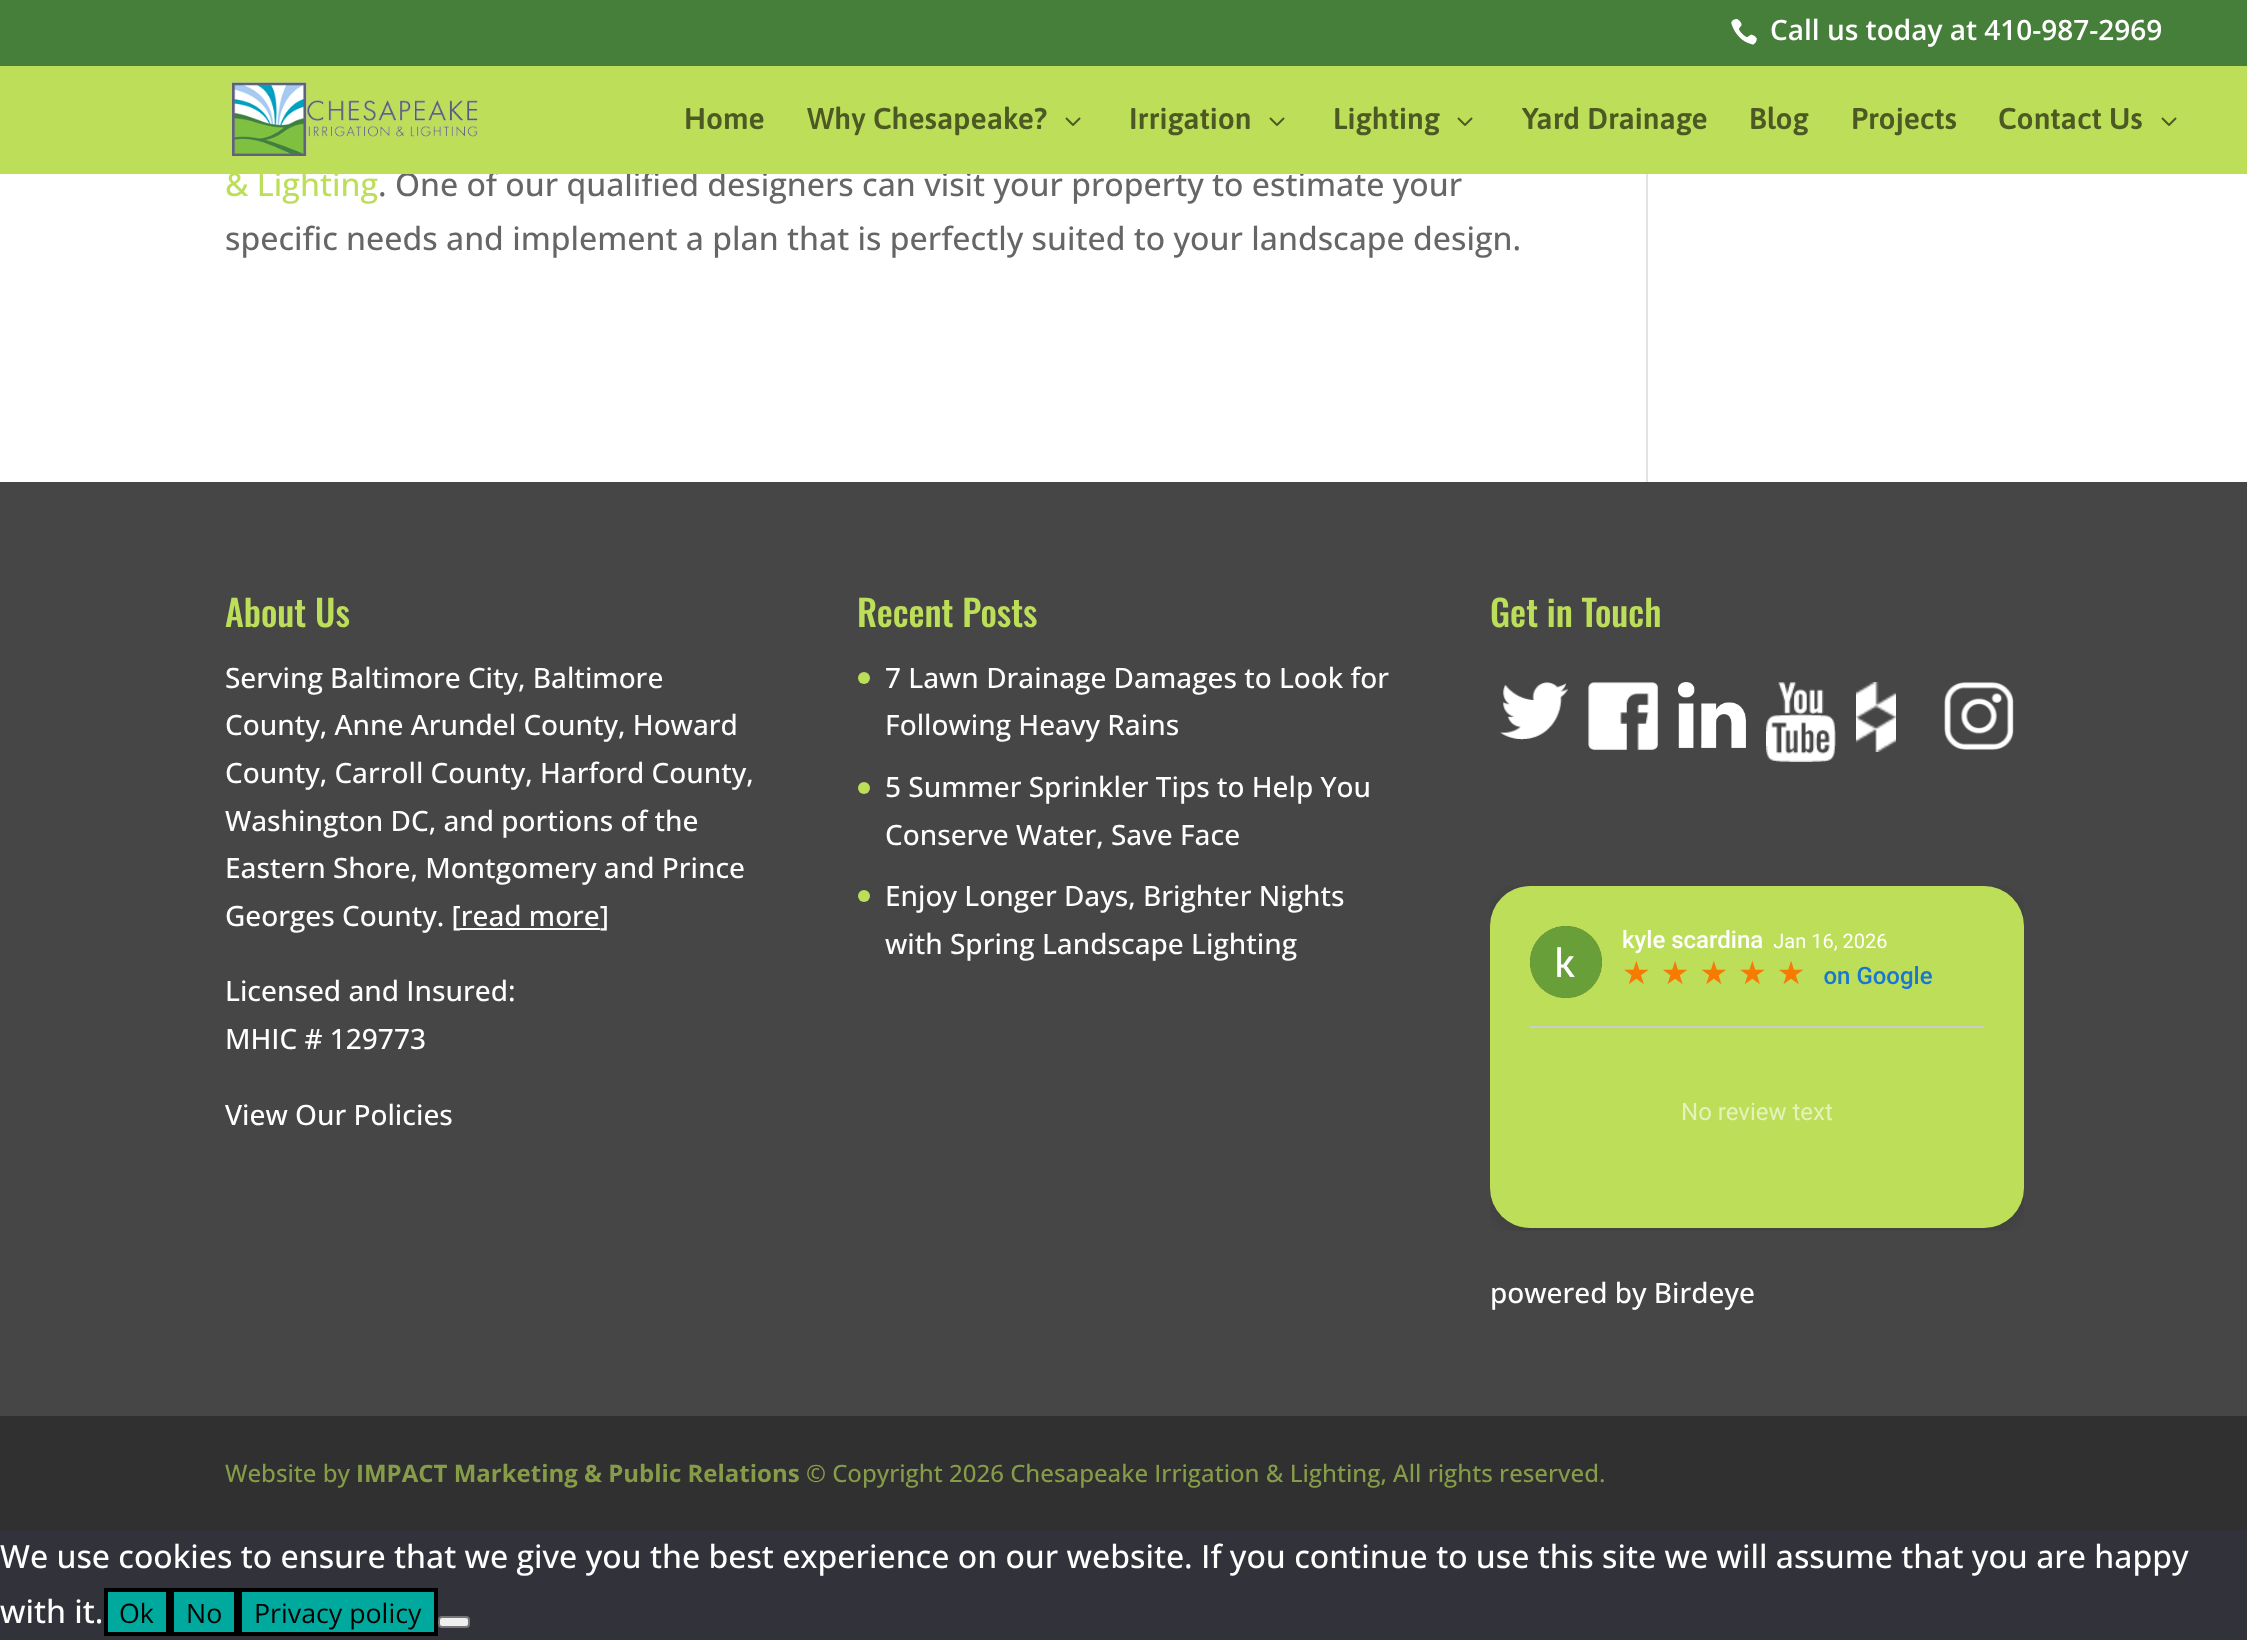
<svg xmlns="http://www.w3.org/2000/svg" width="2247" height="1640">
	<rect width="100%" height="100%" fill="#FFFFFF" />
	<rect x="0" y="0" width="2247" height="66" fill="#467F3A" />
	<image x="1731" y="18" width="26" height="27" href="assets/img1.png" />
	<text x="1770" y="40" font-family="Open Sans" font-size="28" font-weight="600" fill="#FFFFFF">Call us today at 410-987-2969</text>
	<text x="378" y="196" font-family="Open Sans" font-size="32" font-weight="500" fill="#666666">. One of our qualified designers can visit your property to estimate your</text>
	<rect x="0" y="66" width="2247" height="108" fill="#BDDE59" />
	<image x="232" y="82" width="246" height="74" href="assets/img2.png" />
	<g font-family="Asap" font-size="30" font-weight="600" fill="#4C5924">
		<text x="684" y="129">Home</text>
		<text x="807" y="129">Why Chesapeake?</text>
	</g>
	<image x="1065" y="117" width="16" height="9" href="assets/img3.png" />
	<text x="1129" y="129" font-family="Asap" font-size="30" font-weight="600" fill="#4C5924">Irrigation</text>
	<image x="1269" y="117" width="16" height="9" href="assets/img3.png" />
	<text x="1333" y="129" font-family="Asap" font-size="30" font-weight="600" fill="#4C5924">Lighting</text>
	<image x="1457" y="117" width="16" height="9" href="assets/img3.png" />
	<g font-family="Asap" font-size="30" font-weight="600" fill="#4C5924">
		<text x="1522" y="129">Yard Drainage</text>
		<text x="1749" y="129">Blog</text>
		<text x="1851" y="129">Projects</text>
		<text x="1998" y="129">Contact Us</text>
	</g>
	<image x="2161" y="117" width="16" height="9" href="assets/img3.png" />
	<text x="225" y="196" font-family="Open Sans" font-size="32" font-weight="500" fill="#BDDE59">&amp; Lighting</text>
	<text x="225" y="250" font-family="Open Sans" font-size="32" font-weight="500" fill="#666666">specific needs and implement a plan that is perfectly suited to your landscape design.</text>
	<rect x="1646" y="174" width="2" height="308" fill="#E2E2E2" />
	<rect x="0" y="482" width="2247" height="934" fill="#464646" />
	<text x="225" y="627" font-family="Oswald" font-size="36" font-weight="500" fill="#BDDE59">About Us</text>
	<g font-family="Open Sans" font-size="28" font-weight="500" fill="#FFFFFF">
		<text x="225" y="688">Serving Baltimore City, Baltimore</text>
		<text x="225" y="735">County, Anne Arundel County, Howard</text>
		<text x="225" y="783">County, Carroll County, Harford County,</text>
		<text x="225" y="831">Washington DC, and portions of the</text>
		<text x="225" y="878">Eastern Shore, Montgomery and Prince</text>
		<text x="225" y="926">Georges County. [read more]</text>
	</g>
	<rect x="460" y="928" width="140" height="2" fill="#FFFFFF" />
	<g font-family="Open Sans" font-size="28" font-weight="500" fill="#FFFFFF">
		<text x="225" y="1001">Licensed and Insured:</text>
		<text x="225" y="1049">MHIC # 129773</text>
		<text x="225" y="1125">View Our Policies</text>
	</g>
	<text x="857" y="627" font-family="Oswald" font-size="36" font-weight="500" fill="#BDDE59">Recent Posts</text>
	<circle cx="864" cy="678" r="6" fill="#BDDE59" />
	<g font-family="Open Sans" font-size="28" font-weight="500" fill="#FFFFFF">
		<text x="885" y="688">7 Lawn Drainage Damages to Look for</text>
		<text x="885" y="735">Following Heavy Rains</text>
	</g>
	<circle cx="864" cy="788" r="6" fill="#BDDE59" />
	<g font-family="Open Sans" font-size="28" font-weight="500" fill="#FFFFFF">
		<text x="885" y="797">5 Summer Sprinkler Tips to Help You</text>
		<text x="885" y="845">Conserve Water, Save Face</text>
	</g>
	<circle cx="864" cy="896" r="6" fill="#BDDE59" />
	<g font-family="Open Sans" font-size="28" font-weight="500" fill="#FFFFFF">
		<text x="885" y="906">Enjoy Longer Days, Brighter Nights</text>
		<text x="885" y="954">with Spring Landscape Lighting</text>
	</g>
	<text x="1490" y="627" font-family="Oswald" font-size="36" font-weight="500" fill="#BDDE59">Get in Touch</text>
	<image x="1500" y="682" width="68" height="58" href="assets/img4.png" />
	<image x="1588" y="682" width="70" height="68" href="assets/img5.png" />
	<image x="1678" y="682" width="68" height="66" href="assets/img6.png" />
	<image x="1766" y="682" width="70" height="80" href="assets/img7.png" />
	<image x="1856" y="682" width="40" height="70" href="assets/img8.png" />
	<image x="1944" y="682" width="70" height="68" href="assets/img9.png" />
	<image x="1490" y="886" width="534" height="345" href="assets/img10.png" />
	<text x="1490" y="1303" font-family="Open Sans" font-size="28" font-weight="500" fill="#FFFFFF">powered by Birdeye</text>
	<rect x="0" y="1416" width="2247" height="114" fill="#303030" />
	<text x="225" y="1482" font-family="Open Sans" font-size="24" font-weight="500" fill="#879C49">Website by</text>
	<text x="356" y="1482" font-family="Open Sans" font-size="24" font-weight="700" fill="#879C49">IMPACT Marketing &amp; Public Relations</text>
	<text x="806" y="1482" font-family="Open Sans" font-size="24" font-weight="500" fill="#879C49">© Copyright 2026 Chesapeake Irrigation &amp; Lighting, All rights reserved.</text>
	<rect x="0" y="1530" width="2247" height="110" fill="#32323A" />
	<g font-family="Open Sans" font-size="32" font-weight="500" fill="#FFFFFF">
		<text x="0" y="1568">We use cookies to ensure that we give you the best experience on our website. If you continue to use this site we will assume that you are happy</text>
		<text x="0" y="1623">with it.</text>
	</g>
	<rect x="106" y="1590" width="62" height="44" fill="#00A99D" stroke="#000000" stroke-width="4" />
	<text x="119" y="1623" font-family="Open Sans" font-size="26.75" fill="#000000">Ok</text>
	<rect x="172" y="1590" width="64" height="44" fill="#00A99D" stroke="#000000" stroke-width="4" />
	<text x="186" y="1623" font-family="Open Sans" font-size="26.75" fill="#000000">No</text>
	<rect x="240" y="1590" width="196" height="44" fill="#00A99D" stroke="#000000" stroke-width="4" />
	<text x="254" y="1623" font-family="Open Sans" font-size="26.75" fill="#000000">Privacy policy</text>
	<rect x="439" y="1617" width="30" height="10" rx="3" fill="#EFEFEF" stroke="#767676" stroke-width="2" />
</svg>
